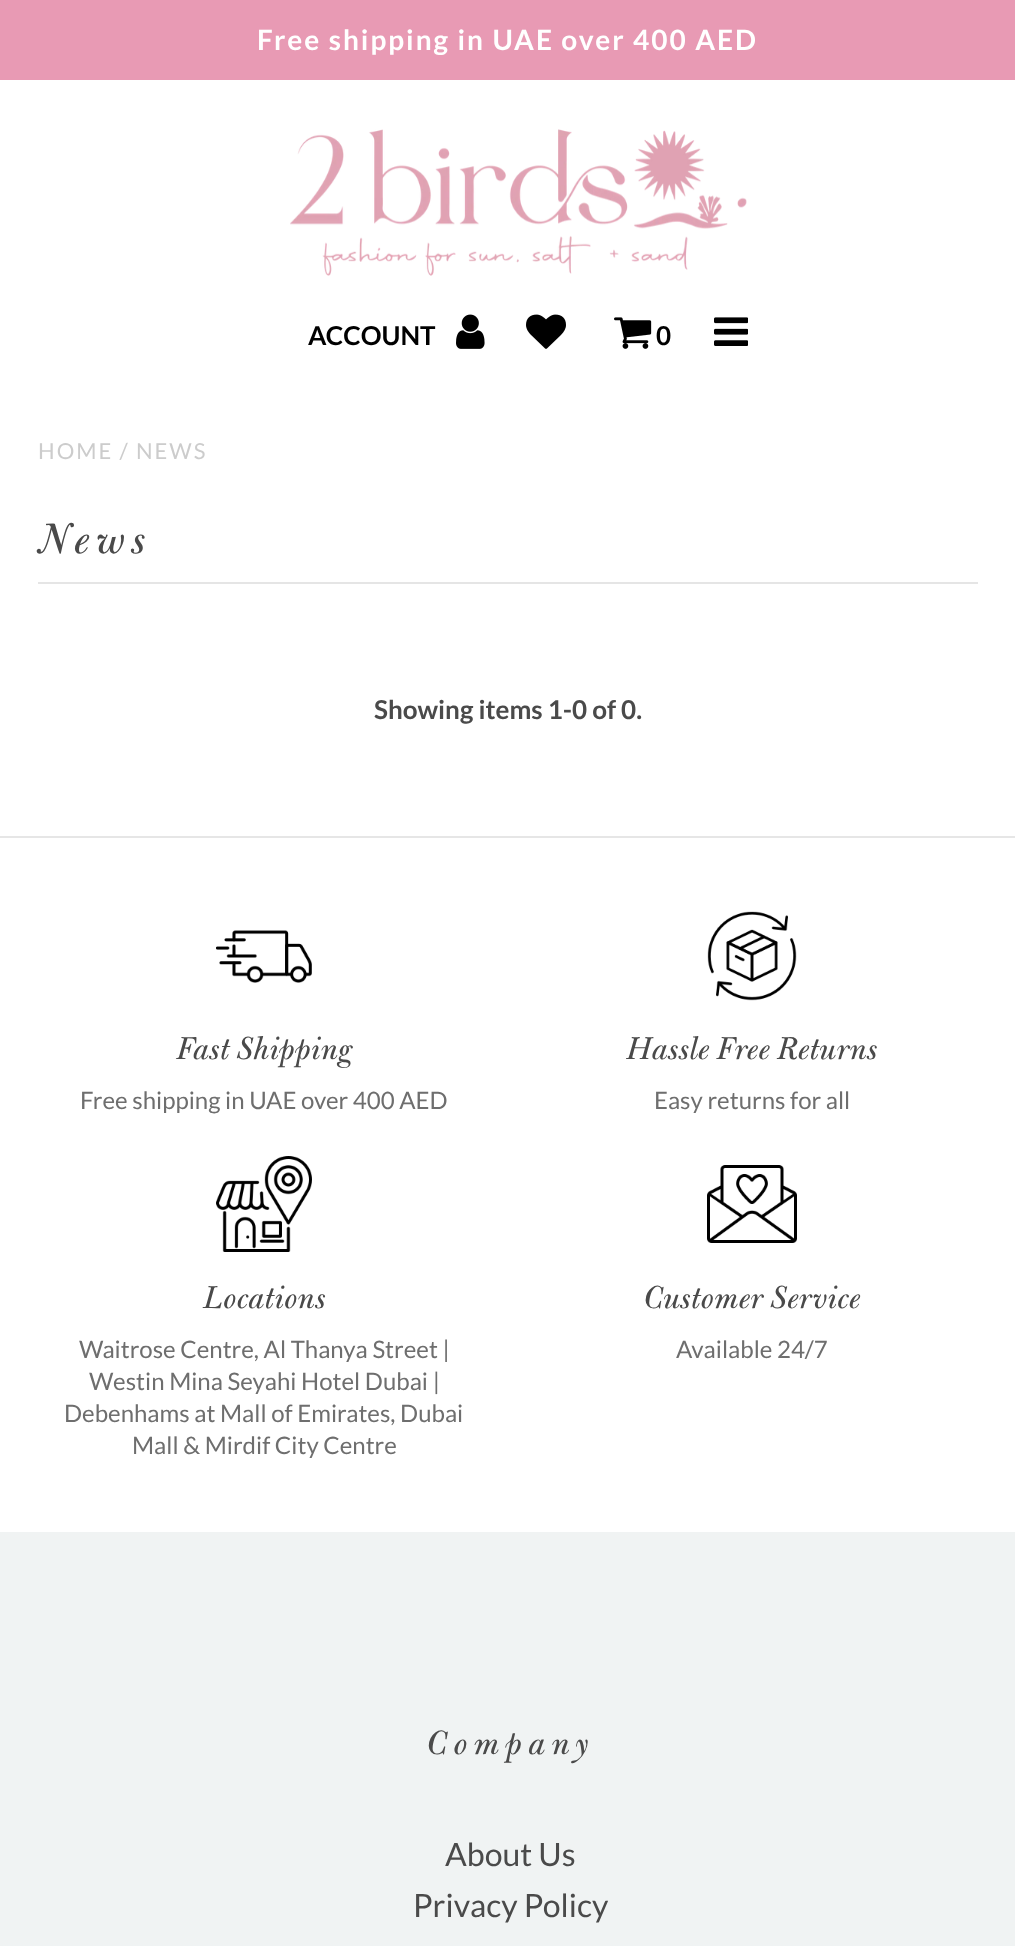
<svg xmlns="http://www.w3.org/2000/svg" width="1015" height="1946">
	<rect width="100%" height="100%" fill="#FFFFFF" />
	<rect x="0" y="0" width="1015" height="80" fill="#E89AB4" />
	<text x="257" y="50" font-family="Lato" font-size="28" font-weight="700" letter-spacing="2" fill="#FFFFFF">Free shipping in UAE over 400 AED</text>
	<image x="290" y="129" width="457" height="147" href="assets/img1.png" />
	<text x="308" y="345" font-family="Lato" font-size="26" font-weight="700" fill="#000000">ACCOUNT</text>
	<image x="456" y="314" width="29" height="35" href="assets/img2.png" />
	<image x="526" y="314" width="40" height="35" href="assets/img3.png" />
	<image x="614" y="317" width="38" height="32" href="assets/img4.png" />
	<text x="656" y="345" font-family="Lato" font-size="26" font-weight="700" fill="#000000">0</text>
	<image x="714" y="317" width="34" height="29" href="assets/img5.png" />
	<text x="38" y="459" font-family="Lato" font-size="22" letter-spacing="2" fill="#CCCCCC">HOME / NEWS</text>
	<rect x="38" y="582" width="940" height="2" fill="#E5E5E5" />
	<text x="38" y="553" font-family="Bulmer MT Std" font-size="46" font-style="italic" letter-spacing="6" fill="#4A4A4A">News</text>
	<text x="374" y="719" font-family="Lato" font-size="26" font-weight="700" fill="#4A4A4A">Showing items 1-0 of 0.</text>
	<rect x="0" y="836" width="1015" height="2" fill="#E6E6E6" />
	<image x="216" y="930" width="96" height="53" href="assets/img6.png" />
	<text x="176" y="1059" font-family="Bulmer MT Std" font-size="34" font-style="italic" fill="#4A4A4A">Fast Shipping</text>
	<text x="80" y="1109" font-family="Lato" font-size="24" fill="#6E6E6E">Free shipping in UAE over 400 AED</text>
	<image x="707" y="911" width="90" height="90" href="assets/img7.png" />
	<text x="626" y="1059" font-family="Bulmer MT Std" font-size="34" font-style="italic" fill="#4A4A4A">Hassle Free Returns</text>
	<text x="654" y="1109" font-family="Lato" font-size="24" fill="#6E6E6E">Easy returns for all</text>
	<image x="216" y="1156" width="96" height="96" href="assets/img8.png" />
	<text x="203" y="1308" font-family="Bulmer MT Std" font-size="34" font-style="italic" fill="#4A4A4A">Locations</text>
	<g font-family="Lato" font-size="24" fill="#6E6E6E">
		<text x="79" y="1358">Waitrose Centre, Al Thanya Street |</text>
		<text x="89" y="1390">Westin Mina Seyahi Hotel Dubai |</text>
		<text x="64" y="1422">Debenhams at Mall of Emirates, Dubai</text>
		<text x="132" y="1454">Mall &amp; Mirdif City Centre</text>
	</g>
	<image x="707" y="1165" width="90" height="78" href="assets/img9.png" />
	<text x="643" y="1308" font-family="Bulmer MT Std" font-size="34" font-style="italic" fill="#4A4A4A">Customer Service</text>
	<text x="676" y="1358" font-family="Lato" font-size="24" fill="#6E6E6E">Available 24/7</text>
	<rect x="0" y="1532" width="1015" height="414" fill="#F0F3F3" />
	<text x="426" y="1754" font-family="Bulmer MT Std" font-size="36" font-style="italic" letter-spacing="6" fill="#4A4A4A">Company</text>
	<g font-family="Lato" font-size="32" fill="#4A4A4A">
		<text x="445" y="1866">About Us</text>
		<text x="413" y="1917">Privacy Policy</text>
	</g>
</svg>
